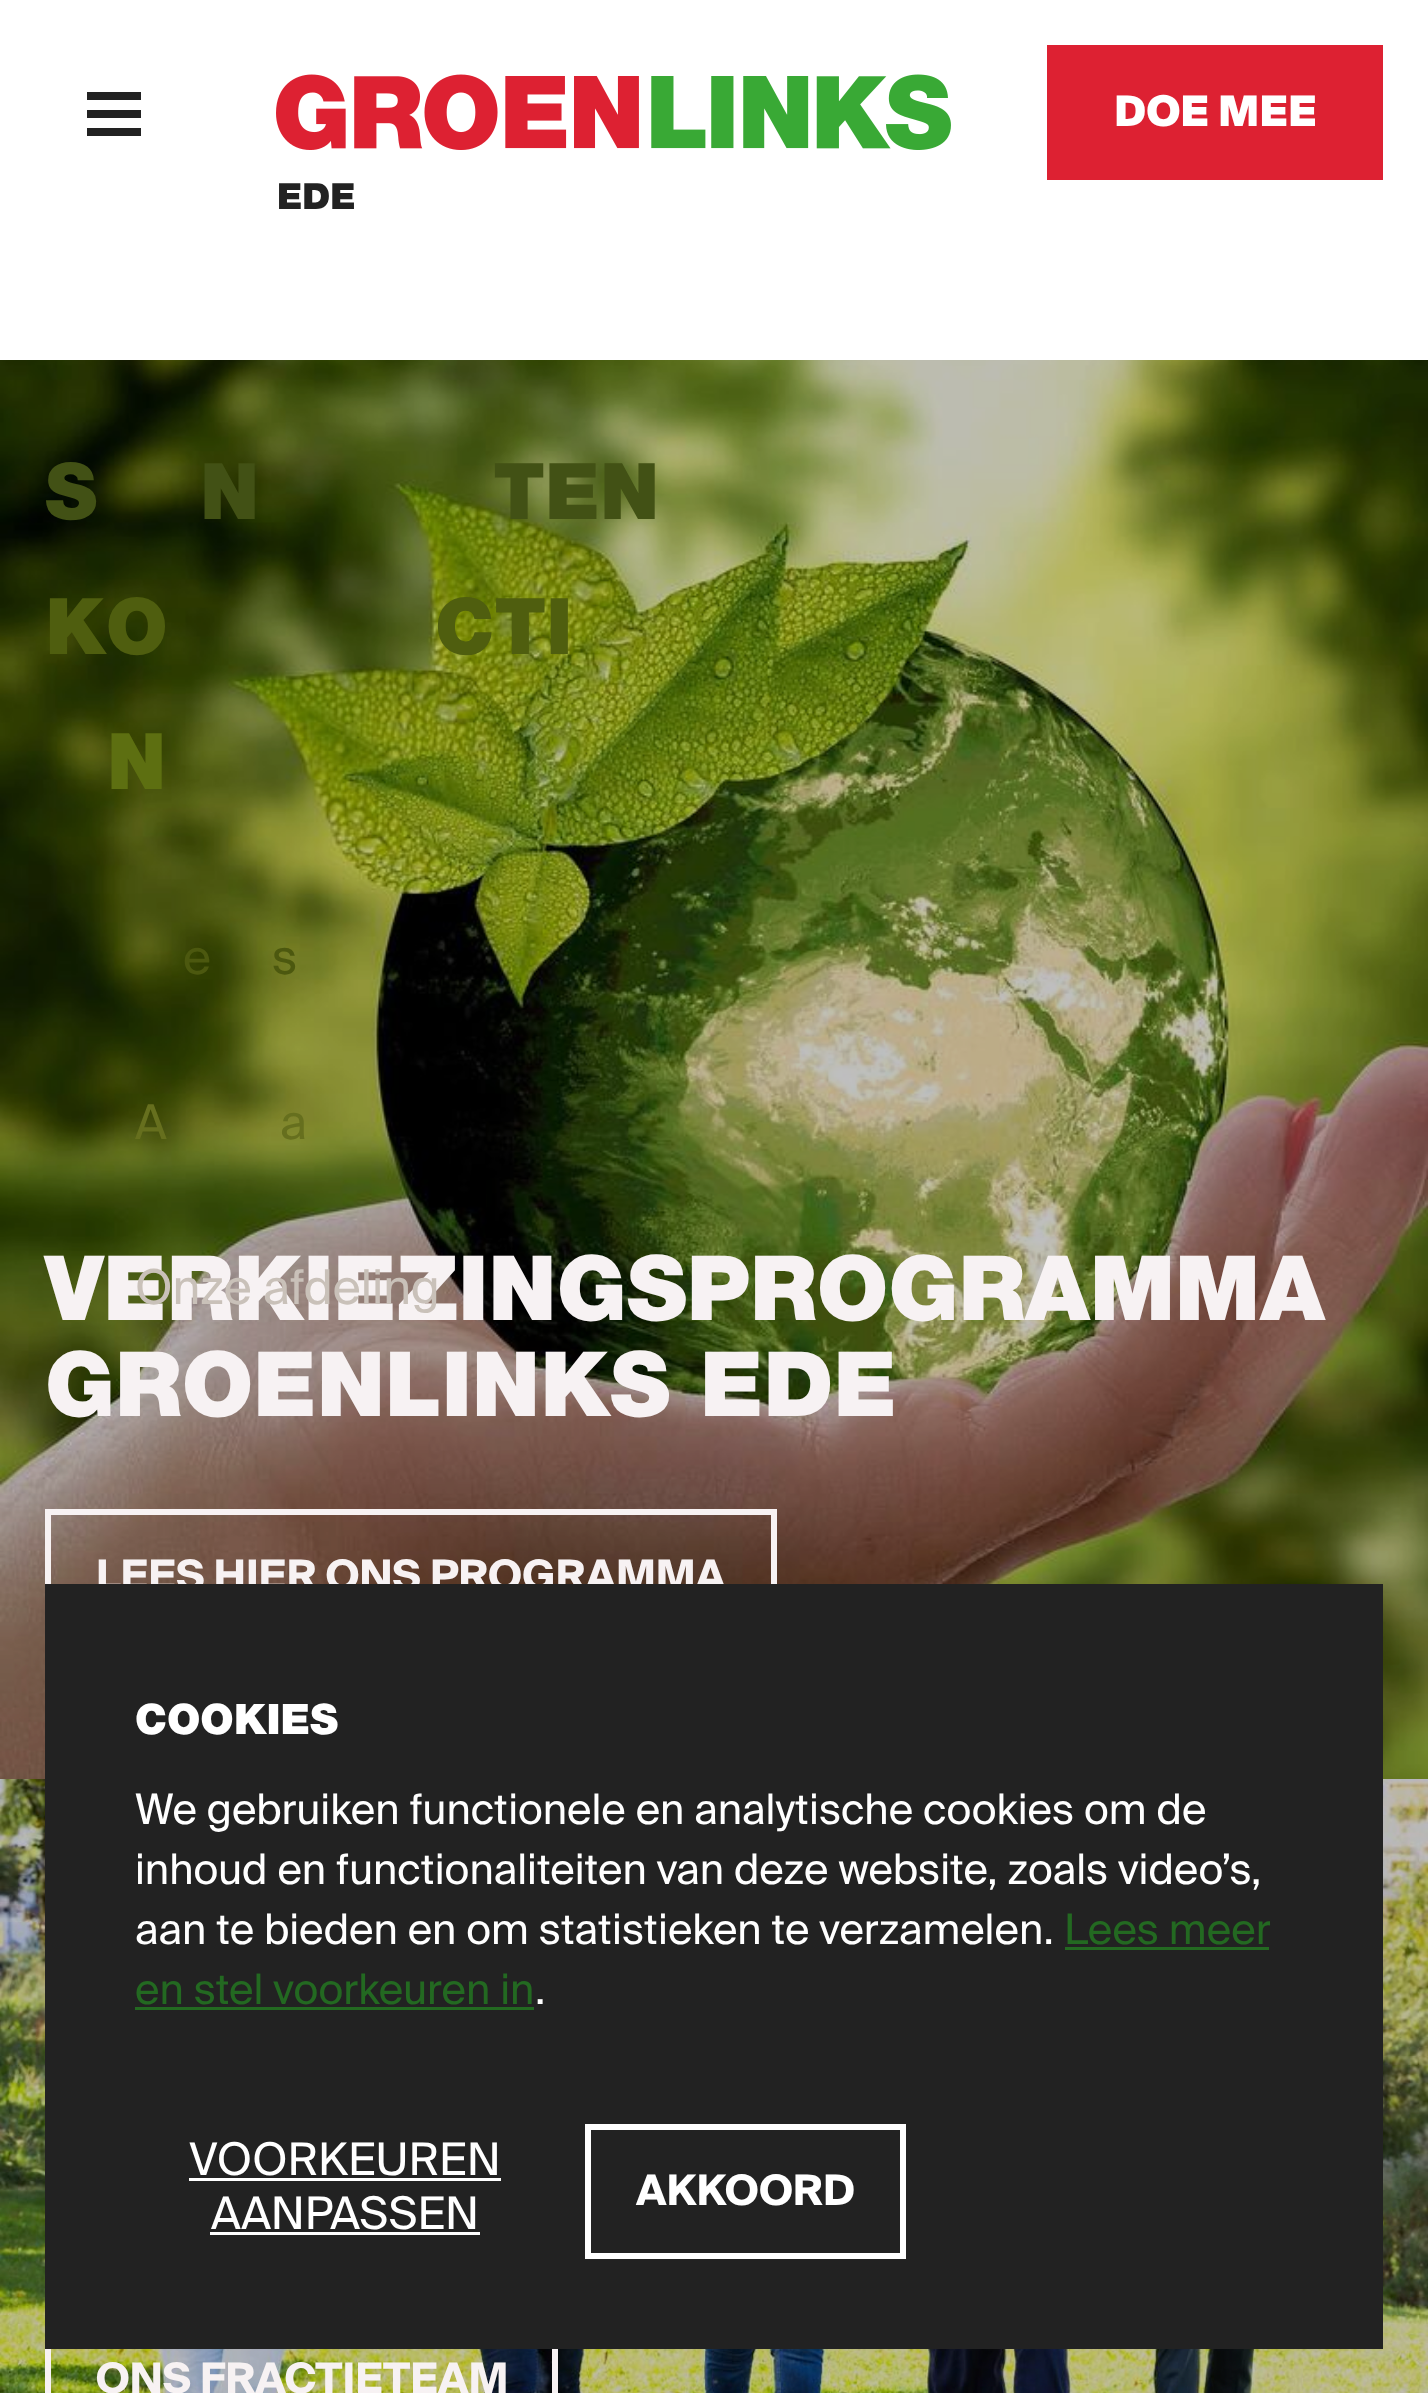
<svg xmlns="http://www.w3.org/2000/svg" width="1428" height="2393">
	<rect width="100%" height="100%" fill="#FFFFFF" />
	<path d="M141 128V136H87V128ZM141 110V118H87V110ZM141 92V100H87V92Z" fill="#222222" fill-rule="evenodd" />
	<rect x="1047" y="45" width="336" height="135" fill="#DD2132" />
	<text x="1114" y="126" font-family="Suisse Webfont" font-size="42" font-weight="900" fill="#FFFFFF">DOE MEE</text>
	<image x="276" y="74" width="675" height="76" href="assets/img1.png" />
	<text x="277" y="209" font-family="Helvetica Neue" font-size="36" font-weight="900" fill="#222222">EDE</text>
	<image x="0" y="360" width="1428" height="1419" href="assets/img2.png" />
	<g font-family="Helvetica Neue" font-size="90" font-weight="900" fill="#F7F2F3">
		<text x="45" y="1320">VERKIEZINGSPROGRAMMA</text>
		<text x="45" y="1416">GROENLINKS EDE</text>
	</g>
	<rect x="48" y="1512" width="726" height="129" fill="none" stroke="#F7F2F3" stroke-width="6" />
	<text x="96" y="1590" font-family="Suisse Webfont" font-size="42" font-weight="700" fill="#F7F2F3">LEES HIER ONS PROGRAMMA</text>
	<image x="0" y="1779" width="1428" height="614" href="assets/img3.png" />
	<rect x="48" y="2316" width="507" height="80" fill="none" stroke="#F7F2F3" stroke-width="6" />
	<text x="96" y="2393" font-family="Suisse Webfont" font-size="42" font-weight="700" fill="#F7F2F3">ONS FRACTIETEAM</text>
	<rect x="45" y="1584" width="1338" height="765" fill="#222222" />
	<text x="135" y="1734" font-family="Helvetica Neue" font-size="42" font-weight="900" fill="#FFFFFF">COOKIES</text>
	<g font-family="Suisse Webfont" font-size="42" fill="#FFFFFF">
		<text x="135" y="1824">We gebruiken functionele en analytische cookies om de</text>
		<text x="135" y="1884">inhoud en functionaliteiten van deze website, zoals video’s,</text>
		<text x="135" y="1944">aan te bieden en om statistieken te verzamelen.</text>
	</g>
	<text x="1064" y="1944" font-family="Suisse Webfont" font-size="42" fill="#236921">Lees meer</text>
	<rect x="1065" y="1947" width="204" height="3" fill="#236921" />
	<text x="135" y="2004" font-family="Suisse Webfont" font-size="42" fill="#236921">en stel voorkeuren in</text>
	<rect x="135" y="2007" width="399" height="3" fill="#236921" />
	<text x="535" y="2004" font-family="Suisse Webfont" font-size="42" fill="#FFFFFF">.</text>
	<text x="189" y="2175" font-family="Suisse Webfont" font-size="45" fill="#FFFFFF">VOORKEUREN</text>
	<rect x="189" y="2178" width="312" height="3" fill="#FFFFFF" />
	<text x="211" y="2229" font-family="Suisse Webfont" font-size="45" fill="#FFFFFF">AANPASSEN</text>
	<rect x="210" y="2232" width="270" height="3" fill="#FFFFFF" />
	<rect x="588" y="2127" width="315" height="129" fill="none" stroke="#FFFFFF" stroke-width="6" />
	<text x="636" y="2205" font-family="Suisse Webfont" font-size="42" font-weight="700" fill="#FFFFFF">AKKOORD</text>
	<g font-family="Helvetica Neue" font-size="78" font-weight="900" fill="#425115">
		<text x="45" y="519">S</text>
		<text x="200" y="519">N</text>
		<text x="493" y="519">TEN</text>
	</g>
	<g font-family="Helvetica Neue" font-size="78" font-weight="900" fill="#4F5E0F">
		<text x="45" y="654">KO</text>
		<text x="435" y="654">CTI</text>
	</g>
	<text x="107" y="789" font-family="Helvetica Neue" font-size="78" font-weight="900" fill="#5D6F11">N</text>
	<g font-family="Suisse Webfont" font-size="48" fill="#4C580F">
		<text x="183" y="974">e</text>
		<text x="272" y="974">s</text>
	</g>
	<g font-family="Suisse Webfont" font-size="48" fill="#666F1E">
		<text x="135" y="1139">A</text>
		<text x="280" y="1139">a</text>
	</g>
	<text x="135" y="1304" font-family="Suisse Webfont" font-size="48" fill="#C9C1B9">Onze afdeling</text>
</svg>
